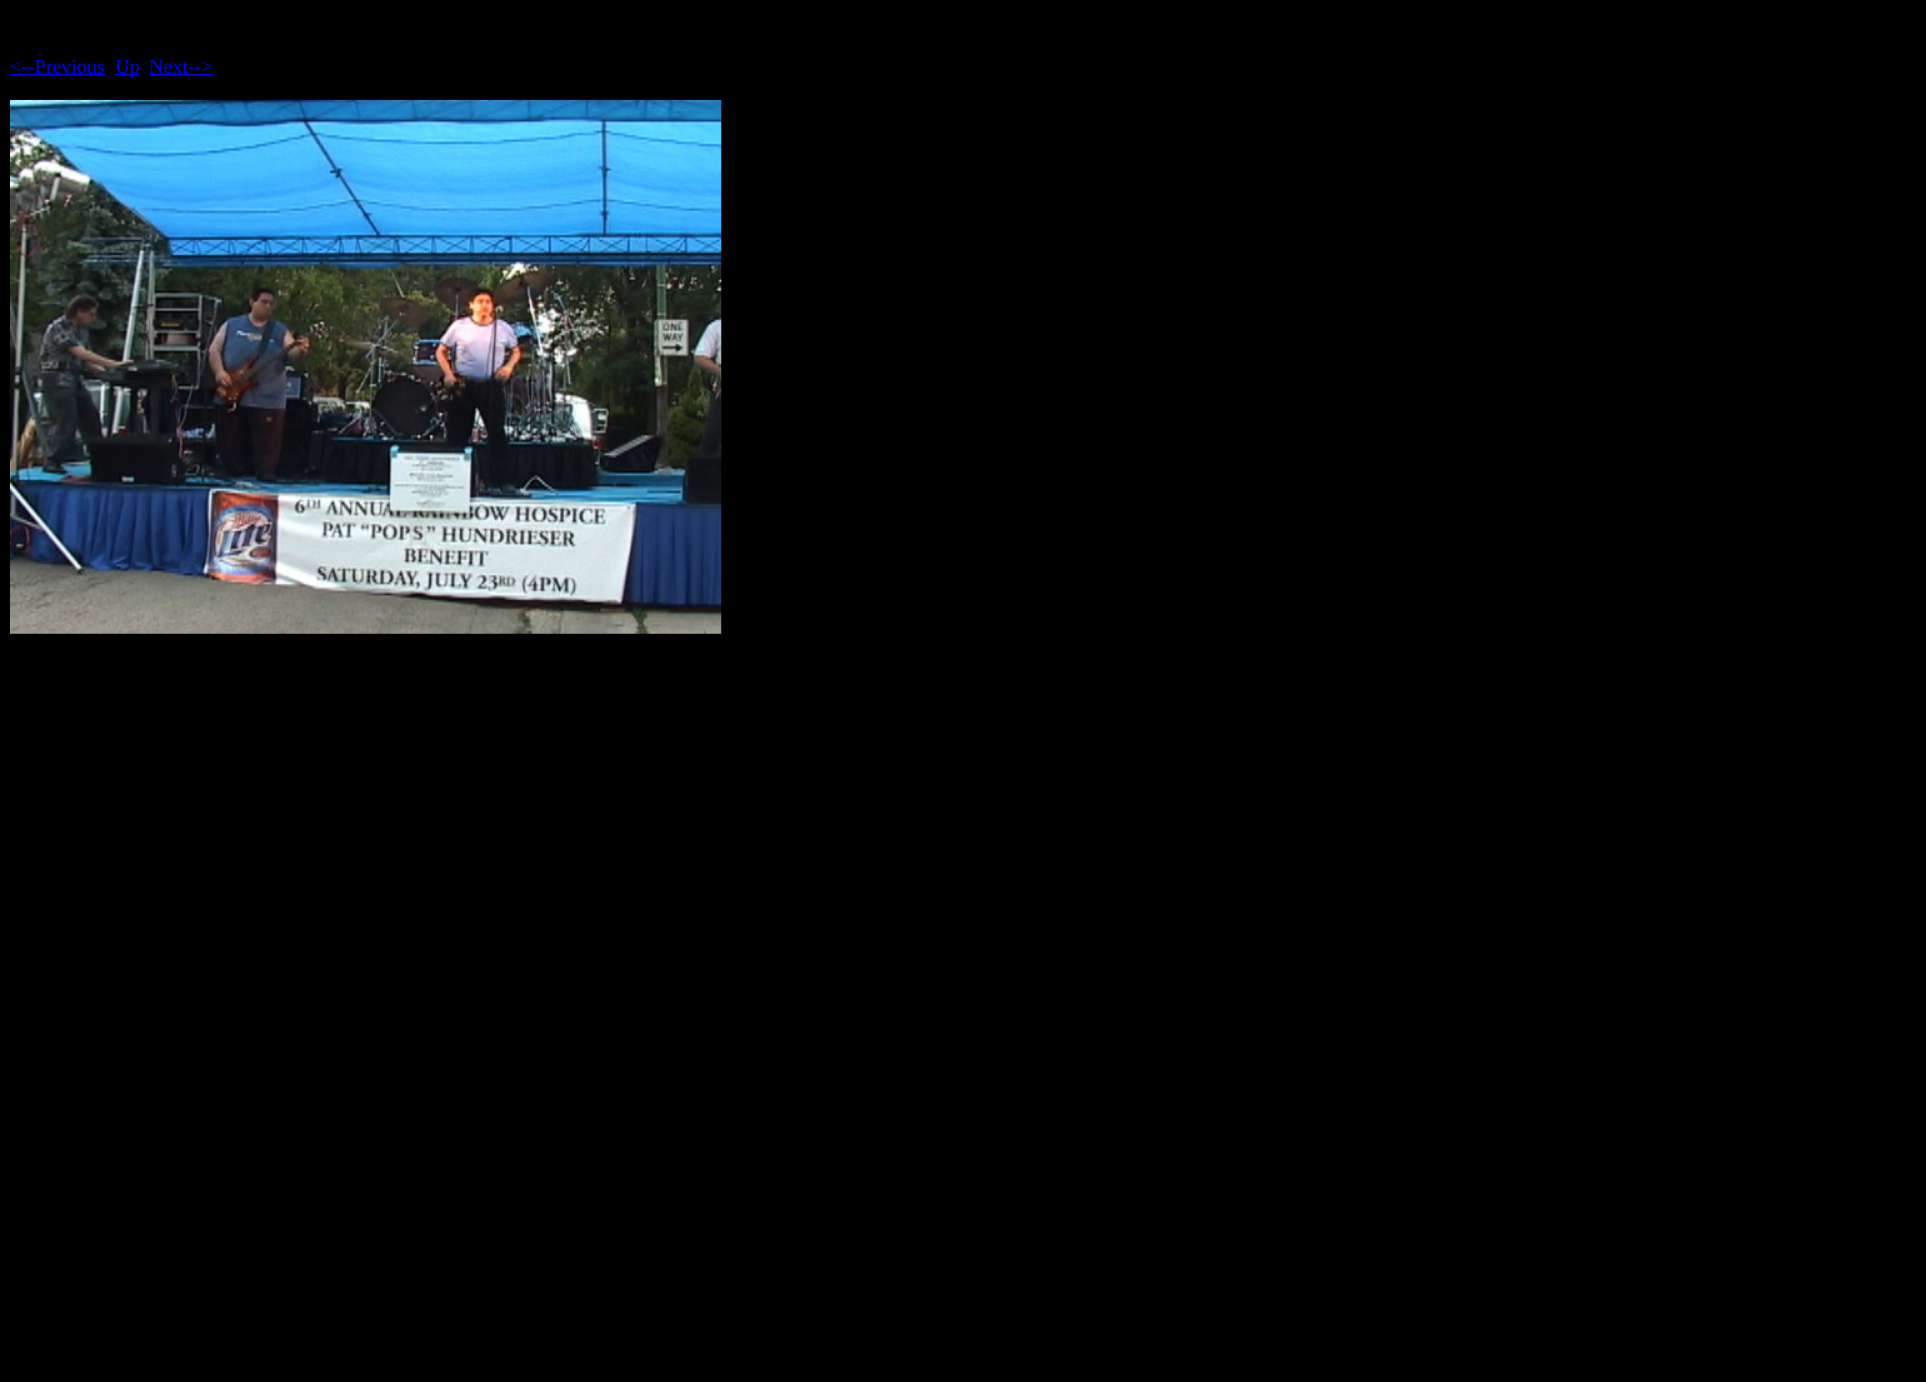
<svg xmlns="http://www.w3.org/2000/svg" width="1926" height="1382">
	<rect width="100%" height="100%" fill="#000000" />
	<text x="10" y="73" font-family="Liberation Serif" font-size="20" fill="#0000EE">&lt;--Previous</text>
	<rect x="10" y="74" width="95" height="1" fill="#0000EE" />
	<rect x="115" y="74" width="24" height="1" fill="#0000EE" />
	<g font-family="Liberation Serif" font-size="20" fill="#0000EE">
		<text x="115" y="73">Up</text>
		<text x="149" y="73">Next--&gt;</text>
	</g>
	<rect x="149" y="74" width="64" height="1" fill="#0000EE" />
	<image x="10" y="100" width="712" height="534" href="assets/img1.png" />
</svg>
